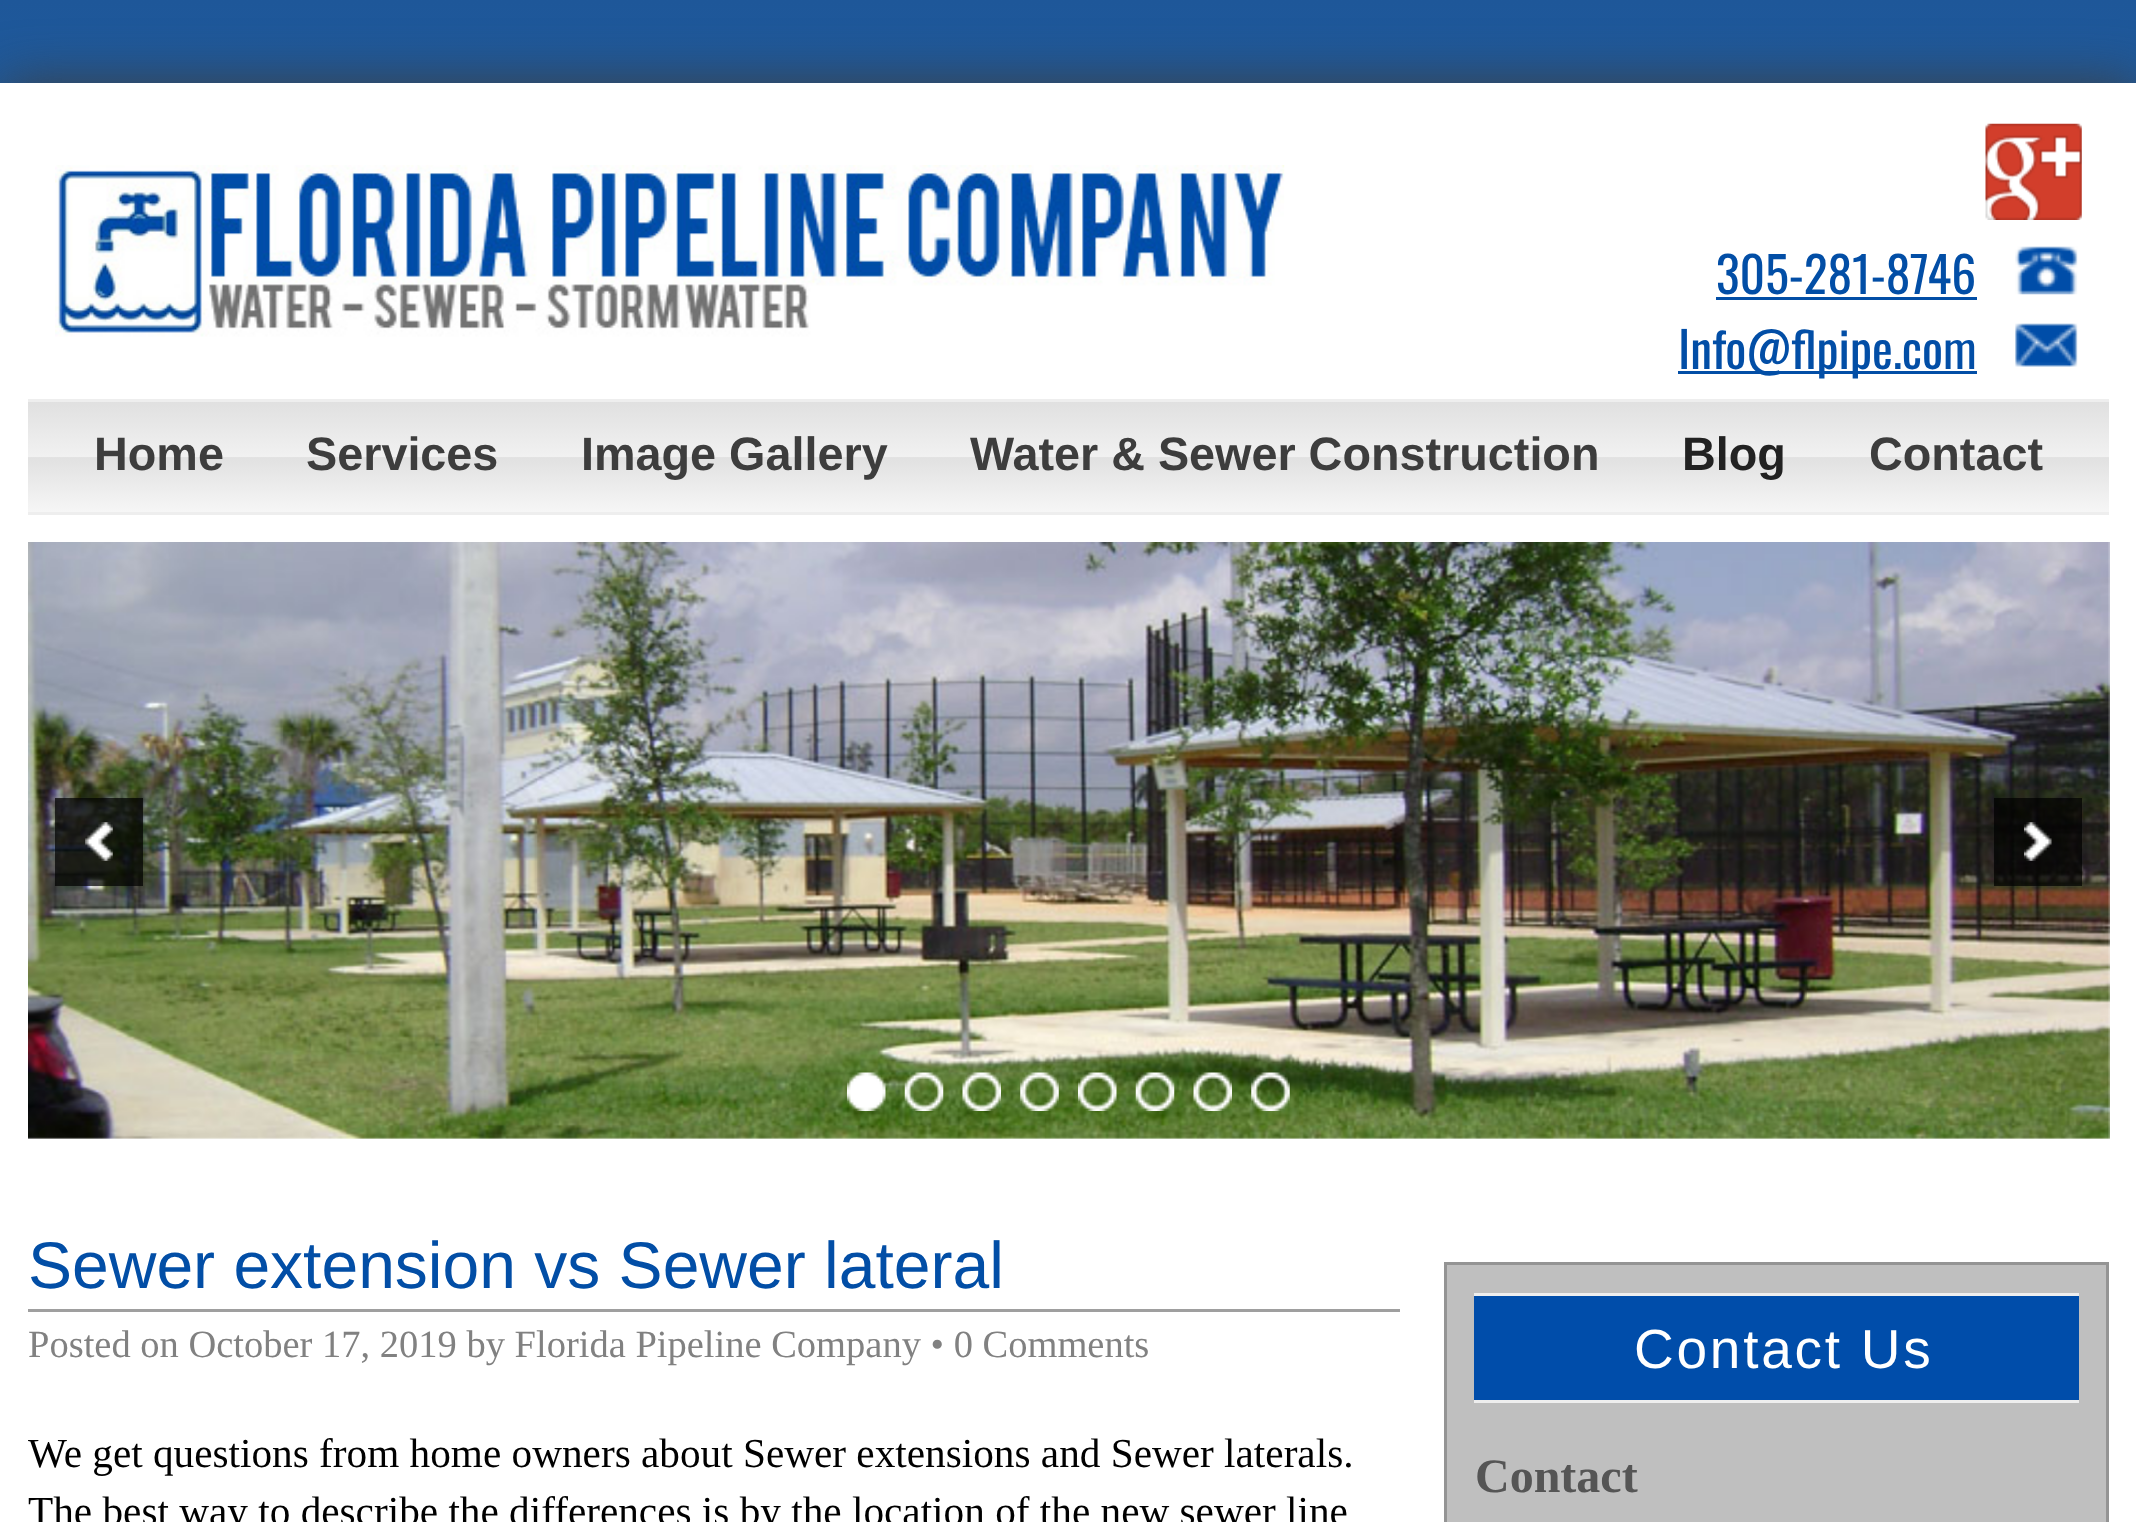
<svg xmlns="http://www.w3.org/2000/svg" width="2136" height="1522">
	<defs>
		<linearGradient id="g1" gradientUnits="userSpaceOnUse" x1="1068" y1="0" x2="1068" y2="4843"><stop offset="0" stop-color="#1E5799" /><stop offset="0.32" stop-color="#2989D8" /><stop offset="1" stop-color="#7DB9E8" /></linearGradient>
		<linearGradient id="g2" gradientUnits="userSpaceOnUse" x1="1068" y1="401" x2="1068" y2="512"><stop offset="0" stop-color="#E0E0E0" /><stop offset="0.5" stop-color="#F1F1F1" /><stop offset="0.51" stop-color="#E1E1E1" /><stop offset="1" stop-color="#F6F6F6" /></linearGradient>
	</defs>
	<rect width="100%" height="100%" fill="#FFFFFF" />
	<rect x="0" y="0" width="2136" height="83" fill="url(#g1)" />
	<rect x="3" y="85" width="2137" height="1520" fill="#3D3D3D" filter="blur(27.5px)" />
	<rect x="0" y="83" width="2136" height="1439" fill="#FFFFFF" />
	<image x="55" y="165" width="1230" height="172" href="assets/img1.png" />
	<image x="1985" y="123" width="97" height="97" href="assets/img2.png" />
	<text x="1716" y="294" font-family="Oswald" font-size="49.5" fill="#024EA6">305-281-8746</text>
	<rect x="1716" y="297" width="261" height="3" fill="#024EA6" />
	<image x="2015" y="246" width="63" height="49" href="assets/img3.png" />
	<rect x="1678" y="371" width="299" height="3" fill="#024EA6" />
	<text x="1678" y="369" font-family="Oswald" font-size="49.5" fill="#024EA6">Info@flpipe.com</text>
	<image x="2015" y="323" width="63" height="44" href="assets/img4.png" />
	<rect x="28" y="402" width="2081" height="110" fill="url(#g2)" />
	<rect x="28" y="399" width="2081" height="3" fill="#EEEEEE" />
	<rect x="28" y="512" width="2081" height="3" fill="#EEEEEE" />
	<g font-family="Liberation Sans" font-size="46.75" font-weight="700" fill="#3D3D3D">
		<text x="94" y="470">Home</text>
		<text x="306" y="470">Services</text>
		<text x="581" y="470">Image Gallery</text>
		<text x="970" y="470">Water &amp; Sewer Construction</text>
	</g>
	<text x="1682" y="470" font-family="Liberation Sans" font-size="46.75" font-weight="700" fill="#222222">Blog</text>
	<text x="1869" y="470" font-family="Liberation Sans" font-size="46.75" font-weight="700" fill="#3D3D3D">Contact</text>
	<image x="28" y="542" width="2082" height="597" href="assets/img5.png" />
	<rect x="55" y="798" width="88" height="88" fill="#000000" fill-opacity="0.7" />
	<image x="85" y="822" width="28" height="39" href="assets/img6.png" />
	<rect x="1994" y="798" width="88" height="88" fill="#000000" fill-opacity="0.7" />
	<image x="2024" y="822" width="28" height="39" href="assets/img7.png" />
	<image x="847" y="1072" width="39" height="39" href="assets/img8.png" />
	<image x="904" y="1072" width="40" height="39" href="assets/img9.png" />
	<image x="962" y="1072" width="39" height="39" href="assets/img10.png" />
	<image x="1020" y="1072" width="39" height="39" href="assets/img11.png" />
	<image x="1078" y="1072" width="39" height="39" href="assets/img12.png" />
	<image x="1135" y="1072" width="40" height="39" href="assets/img13.png" />
	<image x="1193" y="1072" width="39" height="39" href="assets/img14.png" />
	<image x="1251" y="1072" width="39" height="39" href="assets/img15.png" />
	<rect x="28" y="1309" width="1372" height="3" fill="#9F9F9F" />
	<text x="28" y="1288" font-family="Liberation Sans" font-size="66" fill="#024EA6">Sewer extension vs Sewer lateral</text>
	<text x="28" y="1357" font-family="Liberation Serif" font-size="38.5" fill="#818181">Posted on October 17, 2019 by Florida Pipeline Company • 0 Comments</text>
	<g font-family="Liberation Serif" font-size="41.25" fill="#000000">
		<text x="28" y="1467">We get questions from home owners about Sewer extensions and Sewer laterals.</text>
		<text x="28" y="1525">The best way to describe the differences is by the location of the new sewer line</text>
	</g>
	<rect x="1445.5" y="1263.5" width="662" height="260" fill="#BFBFBF" stroke="#949494" stroke-width="3" />
	<rect x="1474" y="1296" width="605" height="104" fill="#004DAA" />
	<rect x="1474" y="1293" width="605" height="3" fill="#EEEEEE" />
	<rect x="1474" y="1400" width="605" height="3" fill="#EEEEEE" />
	<text x="1634" y="1368" font-family="Liberation Sans" font-size="55" letter-spacing="2.75" fill="#FFFFFF">Contact Us</text>
	<text x="1475" y="1492" font-family="Liberation Serif" font-size="48" font-weight="700" fill="#555555">Contact</text>
</svg>
